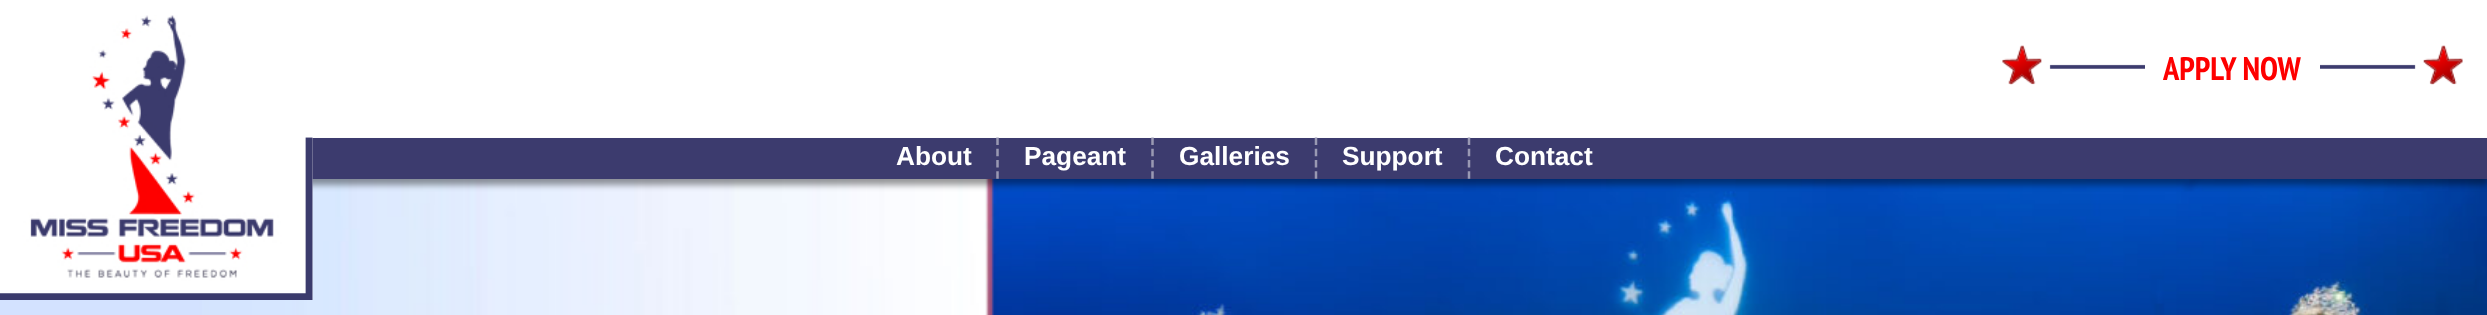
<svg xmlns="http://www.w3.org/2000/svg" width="2487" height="315">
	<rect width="100%" height="100%" fill="#FFFFFF" />
	<image x="0" y="179" width="2487" height="136" href="assets/img5.png" />
	<rect x="0" y="144" width="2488" height="41" fill="#000000" fill-opacity="0.4" filter="blur(3px)" />
	<rect x="312" y="138" width="2175" height="41" fill="#3C3B6E" />
	<image x="0" y="15" width="313" height="285" href="assets/img1.png" />
	<image x="0" y="137" width="313" height="163" href="assets/img2.png" />
	<image x="2002" y="45" width="143" height="40" href="assets/img3.png" />
	<text x="2163" y="80" font-family="PT Sans Narrow" font-size="32.5" font-weight="700" fill="#FE0000">APPLY NOW</text>
	<image x="2320" y="45" width="143" height="40" href="assets/img4.png" />
	<path d="M997.5 137.5V179" fill="none" stroke="#9999B3" stroke-width="2.5" stroke-dasharray="7.5 3.75" />
	<text x="896" y="165" font-family="Liberation Sans" font-size="26.25" font-weight="700" fill="#FFFFFF">About</text>
	<path d="M1152.5 137.5V179" fill="none" stroke="#9999B3" stroke-width="2.5" stroke-dasharray="7.5 3.75" />
	<text x="1024" y="165" font-family="Liberation Sans" font-size="26.25" font-weight="700" fill="#FFFFFF">Pageant</text>
	<path d="M1316 137.5V179" fill="none" stroke="#9999B3" stroke-width="2.5" stroke-dasharray="7.5 3.75" />
	<text x="1179" y="165" font-family="Liberation Sans" font-size="26.25" font-weight="700" fill="#FFFFFF">Galleries</text>
	<path d="M1469 137.5V179" fill="none" stroke="#9999B3" stroke-width="2.5" stroke-dasharray="7.5 3.75" />
	<g font-family="Liberation Sans" font-size="26.25" font-weight="700" fill="#FFFFFF">
		<text x="1342" y="165">Support</text>
		<text x="1495" y="165">Contact</text>
	</g>
</svg>
